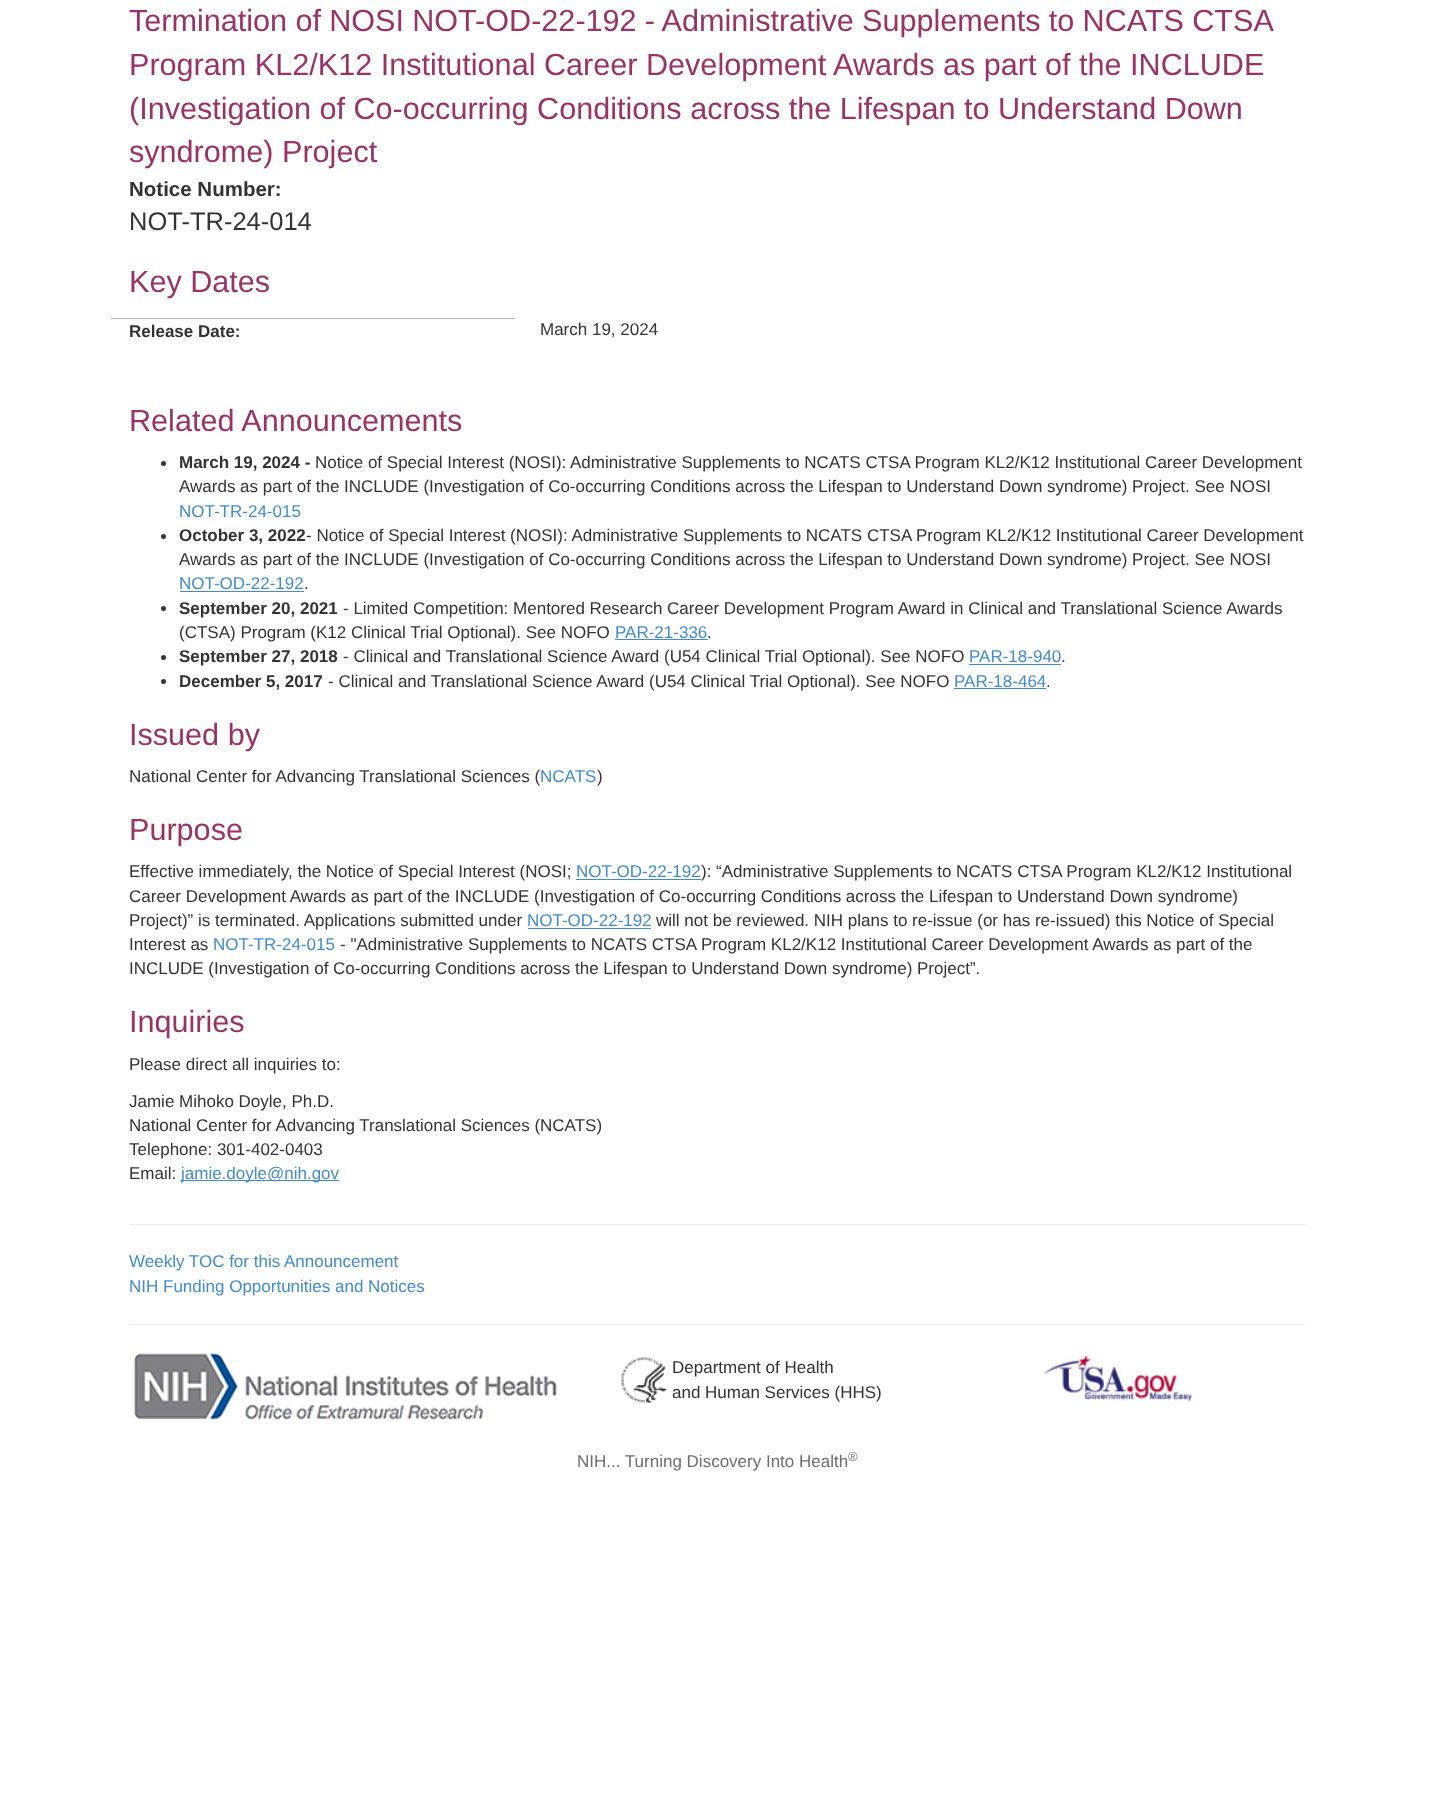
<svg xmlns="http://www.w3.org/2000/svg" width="1433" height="1819">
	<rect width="100%" height="100%" fill="#FFFFFF" />
	<g font-family="Liberation Sans" font-size="30.6" fill="#993366">
		<text x="129" y="31" word-spacing="-0.25">Termination of NOSI NOT-OD-22-192 - Administrative Supplements to NCATS CTSA</text>
		<text x="129" y="75">Program KL2/K12 Institutional Career Development Awards as part of the INCLUDE</text>
		<text x="129" y="119">(Investigation of Co-occurring Conditions across the Lifespan to Understand Down</text>
		<text x="129" y="162">syndrome) Project</text>
	</g>
	<text x="129" y="196" font-family="Liberation Sans" font-size="20.5" font-weight="700" fill="#333333">Notice Number:</text>
	<text x="129" y="230" font-family="Liberation Sans" font-size="25.5" fill="#333333">NOT-TR-24-014</text>
	<text x="129" y="292" font-family="Liberation Sans" font-size="30.6" fill="#993366">Key Dates</text>
	<rect x="111" y="318" width="404" height="1" fill="#BDB9B9" />
	<text x="129" y="337" font-family="Liberation Sans" font-size="17" font-weight="700" fill="#333333">Release Date:</text>
	<text x="540" y="335" font-family="Liberation Sans" font-size="17" fill="#333333">March 19, 2024</text>
	<text x="129" y="431" font-family="Liberation Sans" font-size="30.6" fill="#993366">Related Announcements</text>
	<circle cx="163.5" cy="463.5" r="2.5" fill="#333333" />
	<text x="179" y="468" font-family="Liberation Sans" font-size="17" font-weight="700" fill="#333333">March 19, 2024 -</text>
	<g font-family="Liberation Sans" font-size="17" fill="#333333">
		<text x="315" y="468">Notice of Special Interest (NOSI):</text>
		<text x="570" y="468">Administrative Supplements to NCATS CTSA Program KL2/K12 Institutional Career Development</text>
		<text x="179" y="492">Awards as part of the INCLUDE (Investigation of Co-occurring Conditions across the Lifespan to Understand Down syndrome) Project. See NOSI</text>
	</g>
	<text x="179" y="517" font-family="Liberation Sans" font-size="17" fill="#428BCA">NOT-TR-24-015</text>
	<circle cx="163.5" cy="536.5" r="2.5" fill="#333333" />
	<text x="179" y="541" font-family="Liberation Sans" font-size="17" font-weight="700" fill="#333333">October 3, 2022</text>
	<g font-family="Liberation Sans" font-size="17" fill="#333333">
		<text x="306" y="541">- Notice of Special Interest (NOSI): Administrative Supplements to NCATS CTSA Program KL2/K12 Institutional Career Development</text>
		<text x="179" y="565">Awards as part of the INCLUDE (Investigation of Co-occurring Conditions across the Lifespan to Understand Down syndrome) Project. See NOSI</text>
	</g>
	<text x="179" y="589" font-family="Liberation Sans" font-size="17" fill="#428BCA">NOT-OD-22-192</text>
	<rect x="180" y="591" width="124" height="1" fill="#428BCA" />
	<text x="304" y="589" font-family="Liberation Sans" font-size="17" fill="#333333">.</text>
	<circle cx="163.5" cy="608.5" r="2.5" fill="#333333" />
	<text x="179" y="614" font-family="Liberation Sans" font-size="17" font-weight="700" fill="#333333">September 20, 2021</text>
	<g font-family="Liberation Sans" font-size="17" fill="#333333">
		<text x="343" y="614">- Limited Competition: Mentored Research Career Development Program Award in Clinical and Translational Science Awards</text>
		<text x="179" y="638">(CTSA) Program (K12 Clinical Trial Optional). See NOFO</text>
	</g>
	<text x="615" y="638" font-family="Liberation Sans" font-size="17" fill="#428BCA">PAR-21-336</text>
	<rect x="615" y="639" width="93" height="1" fill="#428BCA" />
	<text x="707" y="638" font-family="Liberation Sans" font-size="17" fill="#333333">.</text>
	<circle cx="163.5" cy="657.5" r="2.5" fill="#333333" />
	<text x="179" y="662" font-family="Liberation Sans" font-size="17" font-weight="700" fill="#333333">September 27, 2018</text>
	<text x="343" y="662" font-family="Liberation Sans" font-size="17" fill="#333333">- Clinical and Translational Science Award (U54 Clinical Trial Optional). See NOFO</text>
	<text x="969" y="662" font-family="Liberation Sans" font-size="17" fill="#428BCA">PAR-18-940</text>
	<rect x="969" y="664" width="92" height="1" fill="#428BCA" />
	<text x="1061" y="662" font-family="Liberation Sans" font-size="17" fill="#333333">.</text>
	<circle cx="163.5" cy="681.5" r="2.5" fill="#333333" />
	<text x="179" y="687" font-family="Liberation Sans" font-size="17" font-weight="700" fill="#333333">December 5, 2017</text>
	<text x="328" y="687" font-family="Liberation Sans" font-size="17" fill="#333333">- Clinical and Translational Science Award (U54 Clinical Trial Optional). See NOFO</text>
	<text x="954" y="687" font-family="Liberation Sans" font-size="17" fill="#428BCA">PAR-18-464</text>
	<rect x="954" y="688" width="92" height="1" fill="#428BCA" />
	<text x="1046" y="687" font-family="Liberation Sans" font-size="17" fill="#333333">.</text>
	<text x="129" y="745" font-family="Liberation Sans" font-size="30.6" fill="#993366">Issued by</text>
	<text x="129" y="782" font-family="Liberation Sans" font-size="17" fill="#333333">National Center for Advancing Translational Sciences (</text>
	<text x="540" y="782" font-family="Liberation Sans" font-size="17" fill="#428BCA">NCATS</text>
	<text x="597" y="782" font-family="Liberation Sans" font-size="17" fill="#333333">)</text>
	<text x="129" y="840" font-family="Liberation Sans" font-size="30.6" fill="#993366">Purpose</text>
	<text x="129" y="877" font-family="Liberation Sans" font-size="17" fill="#333333">Effective immediately, the Notice of Special Interest (NOSI;</text>
	<text x="576" y="877" font-family="Liberation Sans" font-size="17" fill="#428BCA">NOT-OD-22-192</text>
	<rect x="576" y="879" width="125" height="1" fill="#428BCA" />
	<g font-family="Liberation Sans" font-size="17" fill="#333333">
		<text x="701" y="877">): “Administrative Supplements to NCATS CTSA Program KL2/K12 Institutional</text>
		<text x="129" y="902">Career Development Awards as part of the INCLUDE (Investigation of Co-occurring Conditions across the Lifespan to Understand Down syndrome)</text>
		<text x="129" y="926">Project)” is terminated. Applications submitted under</text>
	</g>
	<text x="527" y="926" font-family="Liberation Sans" font-size="17" fill="#428BCA">NOT-OD-22-192</text>
	<rect x="528" y="928" width="123" height="1" fill="#428BCA" />
	<g font-family="Liberation Sans" font-size="17" fill="#333333">
		<text x="656" y="926">will not be reviewed. NIH plans to re-issue (or has re-issued) this Notice of Special</text>
		<text x="129" y="950">Interest as</text>
	</g>
	<text x="213" y="950" font-family="Liberation Sans" font-size="17" fill="#428BCA">NOT-TR-24-015</text>
	<g font-family="Liberation Sans" font-size="17" fill="#333333">
		<text x="340" y="950">- "Administrative Supplements to NCATS CTSA Program KL2/K12 Institutional Career Development Awards as part of the</text>
		<text x="129" y="974">INCLUDE (Investigation of Co-occurring Conditions across the Lifespan to Understand Down syndrome) Project”.</text>
	</g>
	<text x="129" y="1032" font-family="Liberation Sans" font-size="30.6" fill="#993366">Inquiries</text>
	<g font-family="Liberation Sans" font-size="17" fill="#333333">
		<text x="129" y="1070">Please direct all inquiries to:</text>
		<text x="129" y="1107">Jamie Mihoko Doyle, Ph.D.</text>
		<text x="129" y="1131">National Center for Advancing Translational Sciences (NCATS)</text>
		<text x="129" y="1155">Telephone: 301-402-0403</text>
		<text x="129" y="1179">Email:</text>
	</g>
	<rect x="181" y="1180" width="158" height="1" fill="#428BCA" />
	<text x="181" y="1179" font-family="Liberation Sans" font-size="17" fill="#428BCA">jamie.doyle@nih.gov</text>
	<rect x="130" y="1224" width="1175" height="1" fill="#EEEEEE" />
	<g font-family="Liberation Sans" font-size="17" fill="#428BCA">
		<text x="129" y="1267">Weekly TOC for this Announcement</text>
		<text x="129" y="1292">NIH Funding Opportunities and Notices</text>
	</g>
	<rect x="130" y="1324" width="1175" height="1" fill="#EEEEEE" />
	<image x="133" y="1352" width="424" height="69" href="assets/img1.png" />
	<image x="621" y="1357" width="46" height="46" href="assets/img2.png" />
	<g font-family="Liberation Sans" font-size="17" fill="#333333">
		<text x="672" y="1373">Department of Health</text>
		<text x="672" y="1398">and Human Services (HHS)</text>
	</g>
	<image x="1043" y="1356" width="150" height="46" href="assets/img3.png" />
	<text x="577" y="1467" font-family="Liberation Sans" font-size="17" fill="#6E6E6E">NIH... Turning Discovery Into Health</text>
	<text x="848" y="1461" font-family="Liberation Sans" font-size="13" fill="#6E6E6E">®</text>
</svg>
